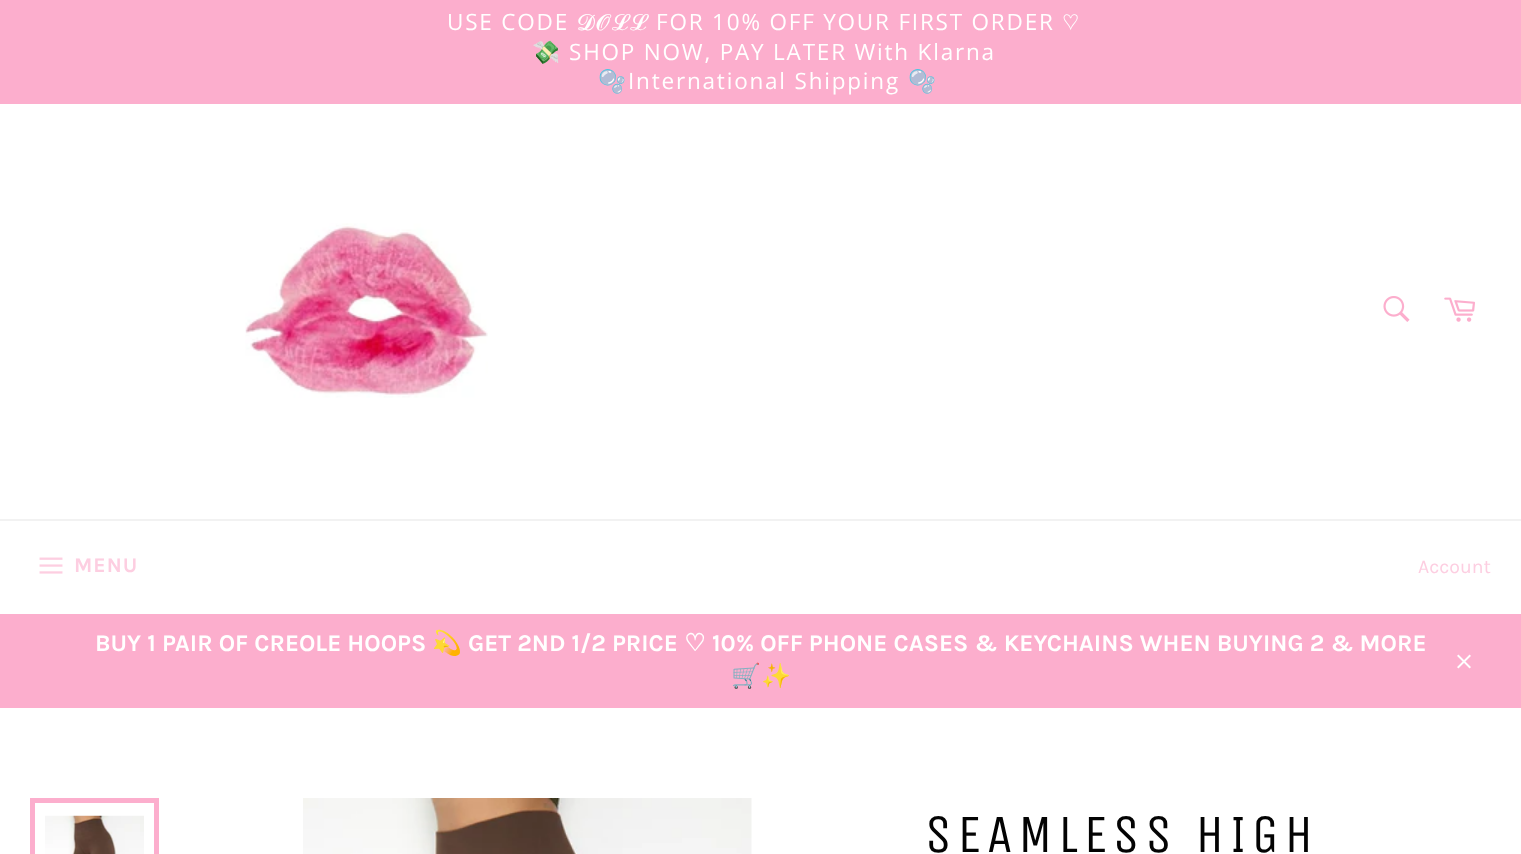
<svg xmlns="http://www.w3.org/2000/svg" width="1521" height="854">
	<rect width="100%" height="100%" fill="#FFFFFF" />
	<rect x="0" y="0" width="1521" height="104" fill="#FCAECD" />
	<text x="447" y="30" font-family="Open Sans" font-size="22.5" letter-spacing="1.8" fill="#FFFFFF">USE CODE</text>
	<text x="577" y="30" font-family="FreeSerif" font-size="22.5" letter-spacing="1.8" fill="#FFFFFF">𝓓𝓞𝓛𝓛</text>
	<text x="656" y="30" font-family="Open Sans" font-size="22.5" letter-spacing="1.8" fill="#FFFFFF">FOR 10% OFF YOUR FIRST ORDER</text>
	<text x="1062" y="30" font-family="FreeSerif" font-size="22.5" letter-spacing="1.8" fill="#FFFFFF">♡</text>
	<text x="532" y="60" font-family="Noto Color Emoji" font-size="22.5" letter-spacing="1.8" fill="#FFFFFF">💸</text>
	<text x="569" y="60" font-family="Open Sans" font-size="22.5" letter-spacing="1.8" fill="#FFFFFF">SHOP NOW, PAY LATER With Klarna</text>
	<text x="598" y="89" font-family="Noto Color Emoji" font-size="22.5" letter-spacing="1.8" fill="#FFFFFF">🫧</text>
	<text x="628" y="89" font-family="Open Sans" font-size="22.5" letter-spacing="1.8" fill="#FFFFFF">International Shipping</text>
	<text x="908" y="89" font-family="Noto Color Emoji" font-size="22.5" letter-spacing="1.8" fill="#FFFFFF">🫧</text>
	<image x="245" y="223" width="243" height="175" href="assets/img1.png" />
	<image x="1383" y="296" width="27" height="26" href="assets/img2.png" />
	<image x="1444" y="297" width="31" height="25" href="assets/img3.png" />
	<rect x="0" y="519" width="1521" height="2" fill="#F2F2F2" />
	<image x="39" y="557" width="24" height="17" href="assets/img4.png" />
	<text x="74" y="572" font-family="Karla" font-size="21" font-weight="700" letter-spacing="1" fill="#FDCEE1">MENU</text>
	<text x="1418" y="573" font-family="Karla" font-size="19.5" fill="#FDCEE1">Account</text>
	<rect x="0" y="614" width="1521" height="94" fill="#FCAECD" />
	<text x="95" y="651" font-family="Karla" font-size="24" font-weight="700" fill="#FFFFFF">BUY 1 PAIR OF CREOLE HOOPS</text>
	<text x="432" y="651" font-family="Noto Color Emoji" font-size="24" font-weight="700" fill="#FFFFFF">💫</text>
	<text x="468" y="651" font-family="Karla" font-size="24" font-weight="700" fill="#FFFFFF">GET 2ND 1/2 PRICE</text>
	<text x="684" y="651" font-family="DejaVu Sans" font-size="24" font-weight="700" fill="#FFFFFF">♡</text>
	<text x="712" y="651" font-family="Karla" font-size="24" font-weight="700" fill="#FFFFFF">10% OFF PHONE CASES &amp; KEYCHAINS WHEN BUYING 2 &amp; MORE</text>
	<text x="731" y="684" font-family="Noto Color Emoji" font-size="24" font-weight="700" fill="#FFFFFF">🛒✨</text>
	<image x="1457" y="654" width="14" height="15" href="assets/img5.png" />
	<image x="45" y="815" width="99" height="39" href="assets/img6.png" />
	<rect x="32.5" y="800.5" width="124" height="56" fill="none" stroke="#FCAECD" stroke-width="5" />
	<image x="303" y="798" width="449" height="56" href="assets/img7.png" />
	<text x="925" y="852" font-family="Unica One" font-size="54" letter-spacing="5.4" fill="#030303">SEAMLESS HIGH</text>
</svg>
